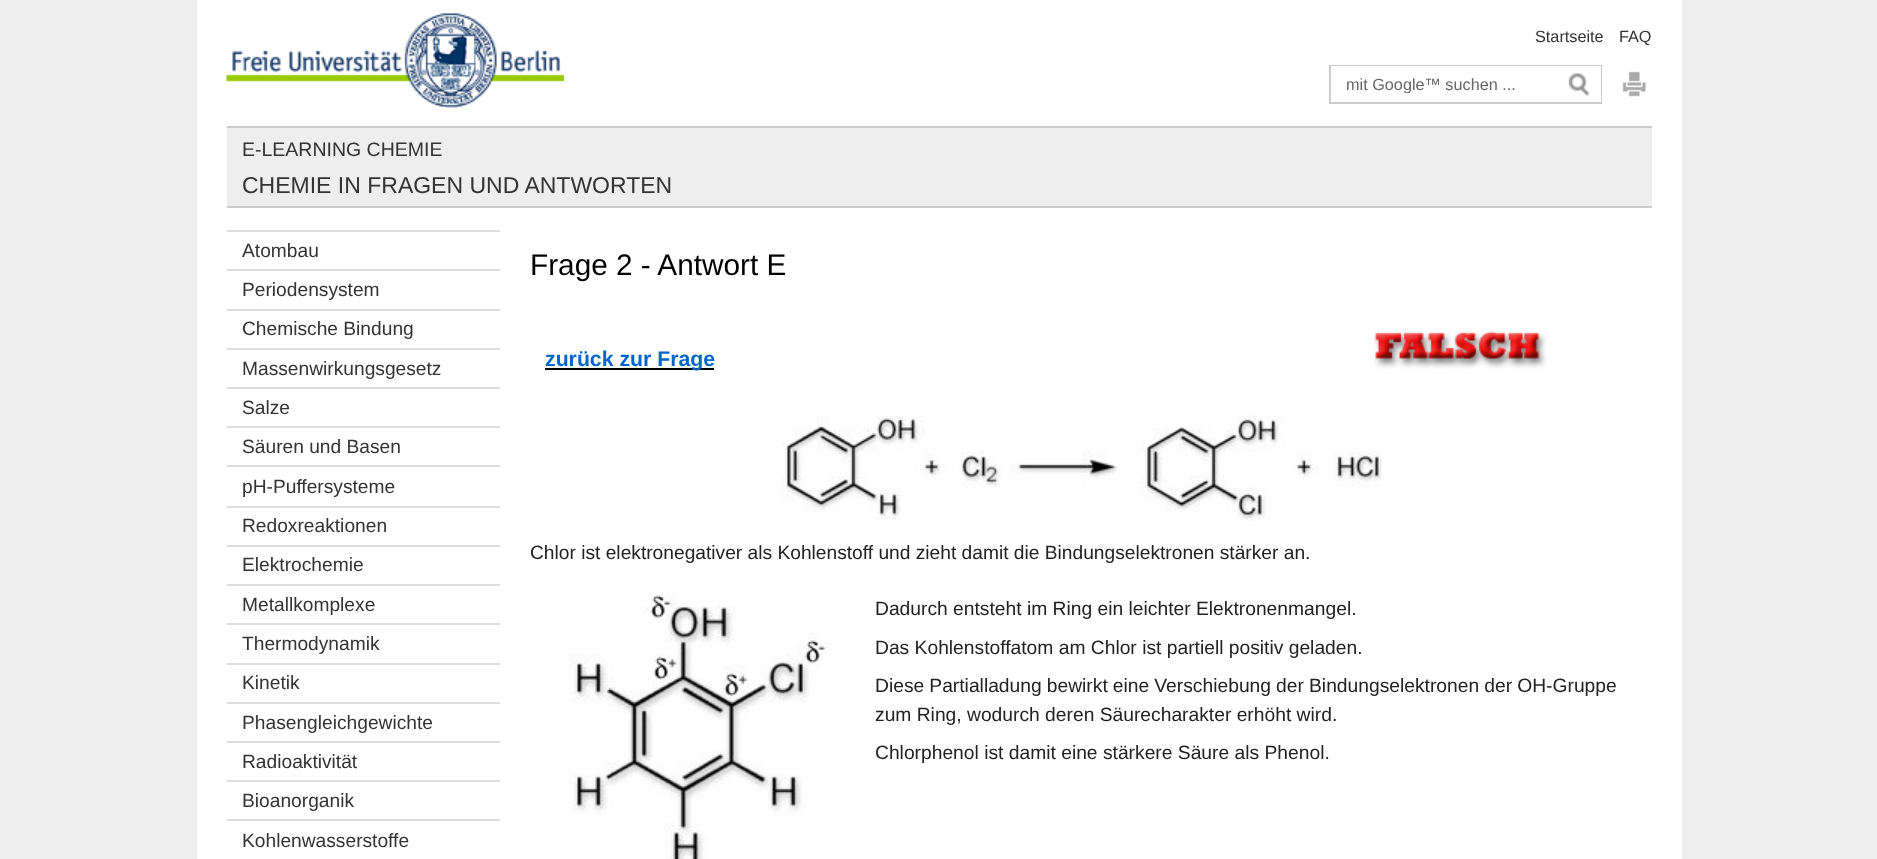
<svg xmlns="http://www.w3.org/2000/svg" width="1877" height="859">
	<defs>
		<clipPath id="clip1"><rect x="1346" y="75" width="240" height="18" /></clipPath>
	</defs>
	<rect width="100%" height="100%" fill="#EEEEEE" />
	<rect x="197" y="0" width="1485" height="859" fill="#FFFFFF" />
	<image x="226" y="13" width="338" height="95" href="assets/img1.png" />
	<g font-family="Liberation Sans" font-size="16.25" fill="#333333">
		<text x="1535" y="42">Startseite</text>
		<text x="1619" y="42">FAQ</text>
	</g>
	<rect x="1330" y="66" width="271" height="37" fill="none" stroke="#CCCCCC" stroke-width="2" />
	<rect x="1331" y="66" width="270" height="36" fill="#FFFFFF" />
	<g clip-path="url(#clip1)">
		<text x="1346" y="90" font-family="Liberation Sans" font-size="16.25" fill="#666666">mit Google™ suchen ...</text>
	</g>
	<image x="1568" y="73" width="22" height="24" href="assets/img2.png" />
	<image x="1622" y="71" width="24" height="26" href="assets/img3.png" />
	<rect x="227" y="128" width="1425" height="78" fill="#EEEEEE" />
	<rect x="227" y="126" width="1425" height="2" fill="#CCCCCC" />
	<rect x="227" y="206" width="1425" height="2" fill="#CCCCCC" />
	<text x="242" y="156" font-family="Liberation Sans" font-size="19.5" fill="#333333">E-LEARNING CHEMIE</text>
	<text x="242" y="193" font-family="Liberation Sans" font-size="23" fill="#333333">CHEMIE IN FRAGEN UND ANTWORTEN</text>
	<rect x="227" y="230" width="273" height="2" fill="#DDDDDD" />
	<rect x="227" y="269" width="273" height="2" fill="#DDDDDD" />
	<text x="242" y="257" font-family="Liberation Sans" font-size="19.2" fill="#333333">Atombau</text>
	<rect x="227" y="309" width="273" height="2" fill="#DDDDDD" />
	<text x="242" y="296" font-family="Liberation Sans" font-size="19.2" fill="#333333">Periodensystem</text>
	<rect x="227" y="348" width="273" height="2" fill="#DDDDDD" />
	<text x="242" y="335" font-family="Liberation Sans" font-size="19.2" fill="#333333">Chemische Bindung</text>
	<rect x="227" y="387" width="273" height="2" fill="#DDDDDD" />
	<text x="242" y="375" font-family="Liberation Sans" font-size="19.2" fill="#333333">Massenwirkungsgesetz</text>
	<rect x="227" y="426" width="273" height="2" fill="#DDDDDD" />
	<text x="242" y="414" font-family="Liberation Sans" font-size="19.2" fill="#333333">Salze</text>
	<rect x="227" y="465" width="273" height="2" fill="#DDDDDD" />
	<text x="242" y="453" font-family="Liberation Sans" font-size="19.2" fill="#333333">Säuren und Basen</text>
	<rect x="227" y="506" width="273" height="2" fill="#DDDDDD" />
	<text x="242" y="493" font-family="Liberation Sans" font-size="19.2" fill="#333333">pH-Puffersysteme</text>
	<rect x="227" y="545" width="273" height="2" fill="#DDDDDD" />
	<text x="242" y="532" font-family="Liberation Sans" font-size="19.2" fill="#333333">Redoxreaktionen</text>
	<rect x="227" y="584" width="273" height="2" fill="#DDDDDD" />
	<text x="242" y="571" font-family="Liberation Sans" font-size="19.2" fill="#333333">Elektrochemie</text>
	<rect x="227" y="623" width="273" height="2" fill="#DDDDDD" />
	<text x="242" y="611" font-family="Liberation Sans" font-size="19.2" fill="#333333">Metallkomplexe</text>
	<rect x="227" y="663" width="273" height="2" fill="#DDDDDD" />
	<text x="242" y="650" font-family="Liberation Sans" font-size="19.2" fill="#333333">Thermodynamik</text>
	<rect x="227" y="702" width="273" height="2" fill="#DDDDDD" />
	<text x="242" y="689" font-family="Liberation Sans" font-size="19.2" fill="#333333">Kinetik</text>
	<rect x="227" y="741" width="273" height="2" fill="#DDDDDD" />
	<text x="242" y="729" font-family="Liberation Sans" font-size="19.2" fill="#333333">Phasengleichgewichte</text>
	<rect x="227" y="780" width="273" height="2" fill="#DDDDDD" />
	<text x="242" y="768" font-family="Liberation Sans" font-size="19.2" fill="#333333">Radioaktivität</text>
	<rect x="227" y="819" width="273" height="2" fill="#DDDDDD" />
	<g font-family="Liberation Sans" font-size="19.2" fill="#333333">
		<text x="242" y="807">Bioanorganik</text>
		<text x="242" y="847">Kohlenwasserstoffe</text>
	</g>
	<text x="530" y="275" font-family="Liberation Sans" font-size="29.75" fill="#000000">Frage 2 - Antwort E</text>
	<rect x="545" y="368" width="169" height="2" fill="#000000" />
	<text x="545" y="366" font-family="Liberation Sans" font-size="21.25" font-weight="700" fill="#0066CC">zurück zur Frage</text>
	<image x="1374" y="331" width="173" height="38" href="assets/img4.png" />
	<image x="781" y="415" width="601" height="106" href="assets/img5.png" />
	<text x="530" y="559" font-family="Liberation Sans" font-size="19.2" fill="#222222">Chlor ist elektronegativer als Kohlenstoff und zieht damit die Bindungselektronen stärker an.</text>
	<image x="569" y="594" width="263" height="265" href="assets/img6.png" />
	<g font-family="Liberation Sans" font-size="19.25" fill="#222222">
		<text x="875" y="615">Dadurch entsteht im Ring ein leichter Elektronenmangel.</text>
		<text x="875" y="654">Das Kohlenstoffatom am Chlor ist partiell positiv geladen.</text>
		<text x="875" y="692" word-spacing="-0.25">Diese Partialladung bewirkt eine Verschiebung der Bindungselektronen der OH-Gruppe</text>
		<text x="875" y="721">zum Ring, wodurch deren Säurecharakter erhöht wird.</text>
		<text x="875" y="759">Chlorphenol ist damit eine stärkere Säure als Phenol.</text>
	</g>
</svg>
